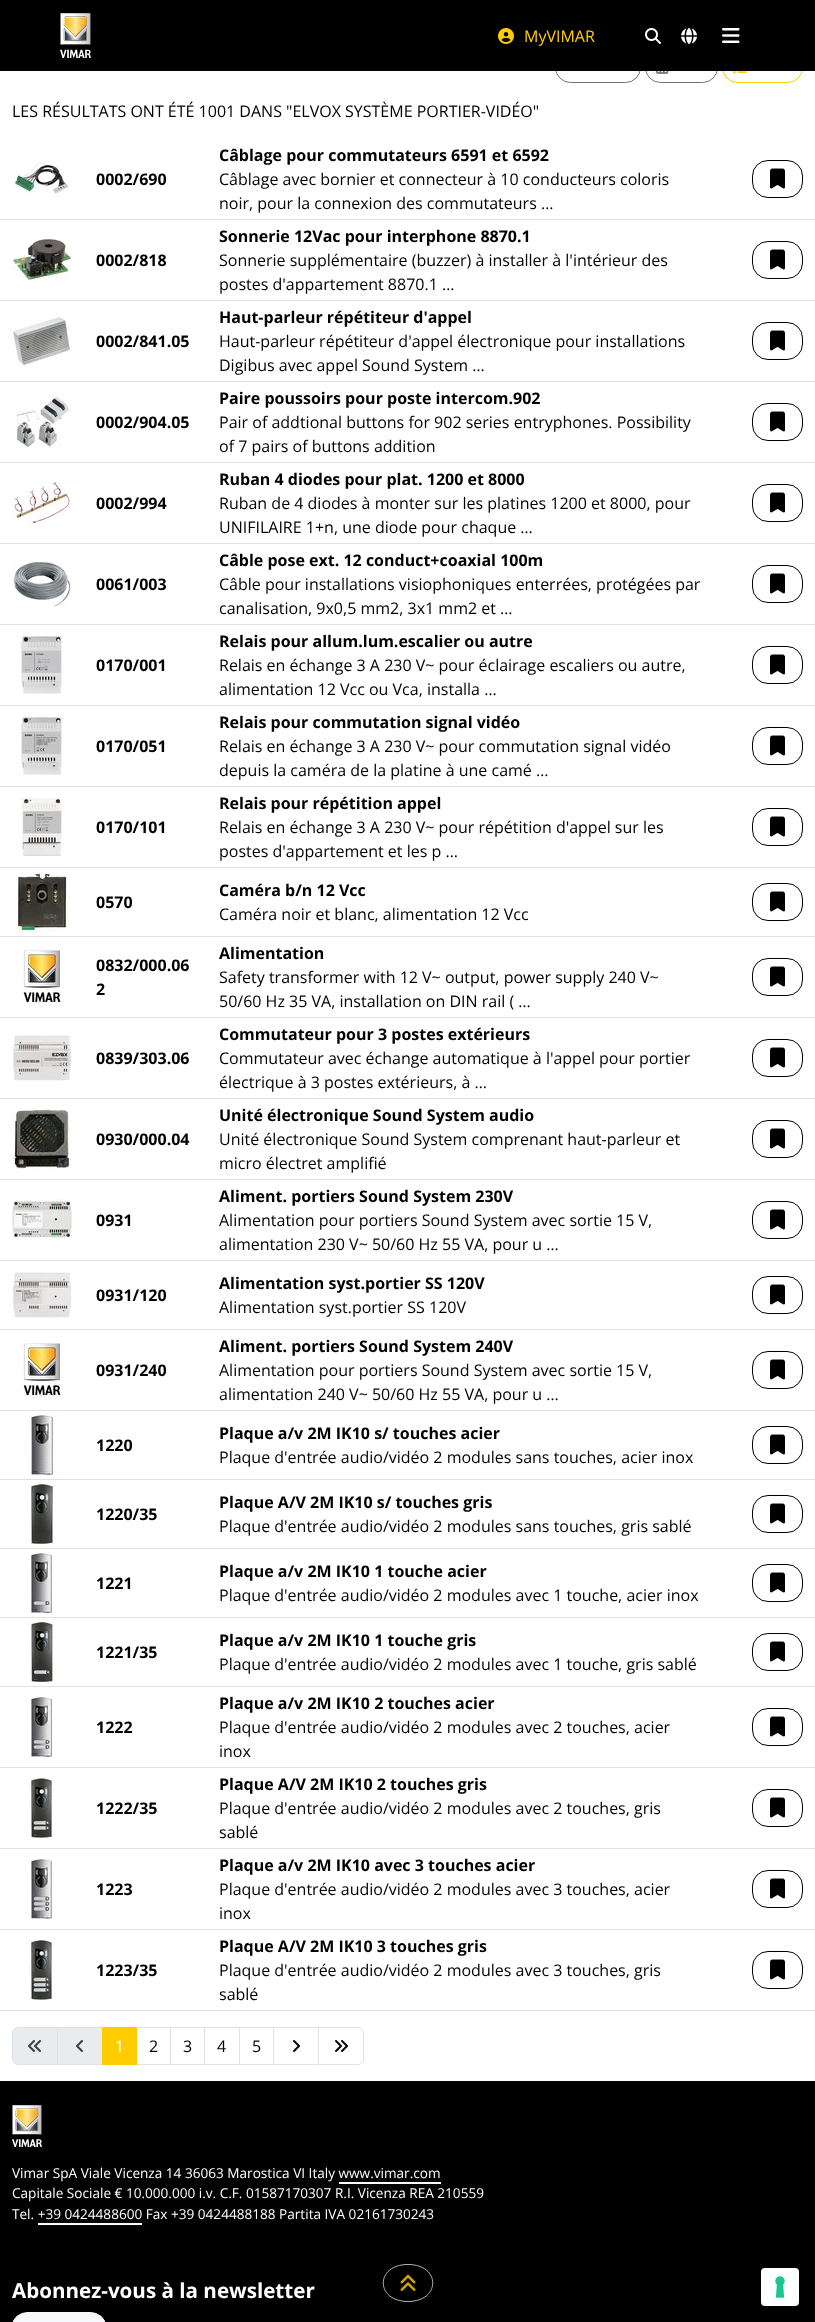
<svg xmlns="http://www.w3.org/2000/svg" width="815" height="2322">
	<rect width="100%" height="100%" fill="#FFFFFF" />
	<rect x="555.5" y="52.5" width="85" height="30" rx="15" fill="none" stroke="#6C757D" />
	<rect x="645.5" y="52.5" width="72" height="30" rx="15" fill="none" stroke="#6C757D" />
	<rect x="722.5" y="52.5" width="80" height="30" rx="15" fill="none" stroke="#FFCC00" />
	<rect x="0" y="0" width="815" height="71" fill="#000000" />
	<image x="60" y="13" width="31" height="45" href="assets/img1.png" />
	<image x="498" y="28" width="16" height="16" href="assets/img2.png" />
	<text x="524" y="42" font-family="Open Sans" font-size="16" fill="#FFCC00">MyVIMAR</text>
	<image x="645" y="28" width="16" height="16" href="assets/img3.png" />
	<image x="681" y="28" width="16" height="16" href="assets/img4.png" />
	<image x="722" y="28" width="18" height="15" href="assets/img5.png" />
	<image x="656" y="71" width="13" height="3" href="assets/img6.png" />
	<image x="733" y="71" width="14" height="3" href="assets/img7.png" />
	<text x="12" y="117" font-family="Open Sans" font-size="16" fill="#000000">LES RÉSULTATS ONT ÉTÉ 1001 DANS "ELVOX SYSTÈME PORTIER-VIDÉO"</text>
	<rect x="0" y="219" width="815" height="1" fill="#DEE2E6" />
	<image x="12" y="161" width="57" height="36" href="assets/img8.png" />
	<g font-family="Open Sans" font-size="16" font-weight="700" fill="#000000">
		<text x="96" y="185">0002/690</text>
		<text x="219" y="161">Câblage pour commutateurs 6591 et 6592</text>
	</g>
	<g font-family="Open Sans" font-size="16" fill="#000000">
		<text x="219" y="185">Câblage avec bornier et connecteur à 10 conducteurs coloris</text>
		<text x="219" y="209">noir, pour la connexion des commutateurs …</text>
	</g>
	<rect x="752.5" y="160.5" width="50" height="37" rx="15.5" fill="none" stroke="#000000" />
	<image x="770" y="168" width="15" height="21" href="assets/img9.png" />
	<rect x="0" y="300" width="815" height="1" fill="#DEE2E6" />
	<image x="12" y="238" width="60" height="43" href="assets/img10.png" />
	<g font-family="Open Sans" font-size="16" font-weight="700" fill="#000000">
		<text x="96" y="266">0002/818</text>
		<text x="219" y="242">Sonnerie 12Vac pour interphone 8870.1</text>
	</g>
	<g font-family="Open Sans" font-size="16" fill="#000000">
		<text x="219" y="266">Sonnerie supplémentaire (buzzer) à installer à l'intérieur des</text>
		<text x="219" y="290">postes d'appartement 8870.1 …</text>
	</g>
	<rect x="752.5" y="241.5" width="50" height="37" rx="15.5" fill="none" stroke="#000000" />
	<image x="770" y="249" width="15" height="21" href="assets/img9.png" />
	<rect x="0" y="381" width="815" height="1" fill="#DEE2E6" />
	<image x="12" y="317" width="58" height="50" href="assets/img11.png" />
	<g font-family="Open Sans" font-size="16" font-weight="700" fill="#000000">
		<text x="96" y="347">0002/841.05</text>
		<text x="219" y="323">Haut-parleur répétiteur d'appel</text>
	</g>
	<g font-family="Open Sans" font-size="16" fill="#000000">
		<text x="219" y="347">Haut-parleur répétiteur d'appel électronique pour installations</text>
		<text x="219" y="371">Digibus avec appel Sound System …</text>
	</g>
	<rect x="752.5" y="322.5" width="50" height="37" rx="15.5" fill="none" stroke="#000000" />
	<image x="770" y="330" width="15" height="21" href="assets/img9.png" />
	<rect x="0" y="462" width="815" height="1" fill="#DEE2E6" />
	<image x="16" y="393" width="54" height="55" href="assets/img12.png" />
	<g font-family="Open Sans" font-size="16" font-weight="700" fill="#000000">
		<text x="96" y="428">0002/904.05</text>
		<text x="219" y="404">Paire poussoirs pour poste intercom.902</text>
	</g>
	<g font-family="Open Sans" font-size="16" fill="#000000">
		<text x="219" y="428">Pair of addtional buttons for 902 series entryphones. Possibility</text>
		<text x="219" y="452">of 7 pairs of buttons addition</text>
	</g>
	<rect x="752.5" y="403.5" width="50" height="37" rx="15.5" fill="none" stroke="#000000" />
	<image x="770" y="411" width="15" height="21" href="assets/img9.png" />
	<rect x="0" y="543" width="815" height="1" fill="#DEE2E6" />
	<image x="12" y="481" width="60" height="48" href="assets/img13.png" />
	<g font-family="Open Sans" font-size="16" font-weight="700" fill="#000000">
		<text x="96" y="509">0002/994</text>
		<text x="219" y="485">Ruban 4 diodes pour plat. 1200 et 8000</text>
	</g>
	<g font-family="Open Sans" font-size="16" fill="#000000">
		<text x="219" y="509">Ruban de 4 diodes à monter sur les platines 1200 et 8000, pour</text>
		<text x="219" y="533">UNIFILAIRE 1+n, une diode pour chaque …</text>
	</g>
	<rect x="752.5" y="484.5" width="50" height="37" rx="15.5" fill="none" stroke="#000000" />
	<image x="770" y="492" width="15" height="21" href="assets/img9.png" />
	<rect x="0" y="624" width="815" height="1" fill="#DEE2E6" />
	<image x="12" y="561" width="60" height="47" href="assets/img14.png" />
	<g font-family="Open Sans" font-size="16" font-weight="700" fill="#000000">
		<text x="96" y="590">0061/003</text>
		<text x="219" y="566">Câble pose ext. 12 conduct+coaxial 100m</text>
	</g>
	<g font-family="Open Sans" font-size="16" fill="#000000">
		<text x="219" y="590">Câble pour installations visiophoniques enterrées, protégées par</text>
		<text x="219" y="614">canalisation, 9x0,5 mm2, 3x1 mm2 et …</text>
	</g>
	<rect x="752.5" y="565.5" width="50" height="37" rx="15.5" fill="none" stroke="#000000" />
	<image x="770" y="573" width="15" height="21" href="assets/img9.png" />
	<rect x="0" y="705" width="815" height="1" fill="#DEE2E6" />
	<image x="20" y="635" width="44" height="59" href="assets/img15.png" />
	<g font-family="Open Sans" font-size="16" font-weight="700" fill="#000000">
		<text x="96" y="671">0170/001</text>
		<text x="219" y="647">Relais pour allum.lum.escalier ou autre</text>
	</g>
	<g font-family="Open Sans" font-size="16" fill="#000000">
		<text x="219" y="671">Relais en échange 3 A 230 V~ pour éclairage escaliers ou autre,</text>
		<text x="219" y="695">alimentation 12 Vcc ou Vca, installa …</text>
	</g>
	<rect x="752.5" y="646.5" width="50" height="37" rx="15.5" fill="none" stroke="#000000" />
	<image x="770" y="654" width="15" height="21" href="assets/img9.png" />
	<rect x="0" y="786" width="815" height="1" fill="#DEE2E6" />
	<image x="20" y="717" width="44" height="58" href="assets/img16.png" />
	<g font-family="Open Sans" font-size="16" font-weight="700" fill="#000000">
		<text x="96" y="752">0170/051</text>
		<text x="219" y="728">Relais pour commutation signal vidéo</text>
	</g>
	<g font-family="Open Sans" font-size="16" fill="#000000">
		<text x="219" y="752">Relais en échange 3 A 230 V~ pour commutation signal vidéo</text>
		<text x="219" y="776">depuis la caméra de la platine à une camé …</text>
	</g>
	<rect x="752.5" y="727.5" width="50" height="37" rx="15.5" fill="none" stroke="#000000" />
	<image x="770" y="735" width="15" height="21" href="assets/img9.png" />
	<rect x="0" y="867" width="815" height="1" fill="#DEE2E6" />
	<image x="20" y="797" width="44" height="60" href="assets/img17.png" />
	<g font-family="Open Sans" font-size="16" font-weight="700" fill="#000000">
		<text x="96" y="833">0170/101</text>
		<text x="219" y="809">Relais pour répétition appel</text>
	</g>
	<g font-family="Open Sans" font-size="16" fill="#000000">
		<text x="219" y="833">Relais en échange 3 A 230 V~ pour répétition d'appel sur les</text>
		<text x="219" y="857">postes d'appartement et les p …</text>
	</g>
	<rect x="752.5" y="808.5" width="50" height="37" rx="15.5" fill="none" stroke="#000000" />
	<image x="770" y="816" width="15" height="21" href="assets/img9.png" />
	<rect x="0" y="936" width="815" height="1" fill="#DEE2E6" />
	<image x="16" y="872" width="52" height="60" href="assets/img18.png" />
	<g font-family="Open Sans" font-size="16" font-weight="700" fill="#000000">
		<text x="96" y="908">0570</text>
		<text x="219" y="896">Caméra b/n 12 Vcc</text>
	</g>
	<text x="219" y="920" font-family="Open Sans" font-size="16" fill="#000000">Caméra noir et blanc, alimentation 12 Vcc</text>
	<rect x="752.5" y="883.5" width="50" height="37" rx="15.5" fill="none" stroke="#000000" />
	<image x="770" y="891" width="15" height="21" href="assets/img9.png" />
	<rect x="0" y="1017" width="815" height="1" fill="#DEE2E6" />
	<image x="20" y="950" width="44" height="53" href="assets/img19.png" />
	<g font-family="Open Sans" font-size="16" font-weight="700" fill="#000000">
		<text x="96" y="971">0832/000.06</text>
		<text x="96" y="995">2</text>
		<text x="219" y="959">Alimentation</text>
	</g>
	<g font-family="Open Sans" font-size="16" fill="#000000">
		<text x="219" y="983">Safety transformer with 12 V~ output, power supply 240 V~</text>
		<text x="219" y="1007">50/60 Hz 35 VA, installation on DIN rail ( …</text>
	</g>
	<rect x="752.5" y="958.5" width="50" height="37" rx="15.5" fill="none" stroke="#000000" />
	<image x="770" y="966" width="15" height="21" href="assets/img9.png" />
	<rect x="0" y="1098" width="815" height="1" fill="#DEE2E6" />
	<image x="12" y="1035" width="60" height="46" href="assets/img20.png" />
	<g font-family="Open Sans" font-size="16" font-weight="700" fill="#000000">
		<text x="96" y="1064">0839/303.06</text>
		<text x="219" y="1040">Commutateur pour 3 postes extérieurs</text>
	</g>
	<g font-family="Open Sans" font-size="16" fill="#000000">
		<text x="219" y="1064">Commutateur avec échange automatique à l'appel pour portier</text>
		<text x="219" y="1088">électrique à 3 postes extérieurs, à …</text>
	</g>
	<rect x="752.5" y="1039.5" width="50" height="37" rx="15.5" fill="none" stroke="#000000" />
	<image x="770" y="1047" width="15" height="21" href="assets/img9.png" />
	<rect x="0" y="1179" width="815" height="1" fill="#DEE2E6" />
	<image x="12" y="1109" width="60" height="60" href="assets/img21.png" />
	<g font-family="Open Sans" font-size="16" font-weight="700" fill="#000000">
		<text x="96" y="1145">0930/000.04</text>
		<text x="219" y="1121">Unité électronique Sound System audio</text>
	</g>
	<g font-family="Open Sans" font-size="16" fill="#000000">
		<text x="219" y="1145">Unité électronique Sound System comprenant haut-parleur et</text>
		<text x="219" y="1169">micro électret amplifié</text>
	</g>
	<rect x="752.5" y="1120.5" width="50" height="37" rx="15.5" fill="none" stroke="#000000" />
	<image x="770" y="1128" width="15" height="21" href="assets/img9.png" />
	<rect x="0" y="1260" width="815" height="1" fill="#DEE2E6" />
	<image x="12" y="1198" width="60" height="40" href="assets/img22.png" />
	<g font-family="Open Sans" font-size="16" font-weight="700" fill="#000000">
		<text x="96" y="1226">0931</text>
		<text x="219" y="1202">Aliment. portiers Sound System 230V</text>
	</g>
	<g font-family="Open Sans" font-size="16" fill="#000000">
		<text x="219" y="1226">Alimentation pour portiers Sound System avec sortie 15 V,</text>
		<text x="219" y="1250">alimentation 230 V~ 50/60 Hz 55 VA, pour u …</text>
	</g>
	<rect x="752.5" y="1201.5" width="50" height="37" rx="15.5" fill="none" stroke="#000000" />
	<image x="770" y="1209" width="15" height="21" href="assets/img9.png" />
	<rect x="0" y="1329" width="815" height="1" fill="#DEE2E6" />
	<image x="12" y="1272" width="60" height="46" href="assets/img23.png" />
	<g font-family="Open Sans" font-size="16" font-weight="700" fill="#000000">
		<text x="96" y="1301">0931/120</text>
		<text x="219" y="1289">Alimentation syst.portier SS 120V</text>
	</g>
	<text x="219" y="1313" font-family="Open Sans" font-size="16" fill="#000000">Alimentation syst.portier SS 120V</text>
	<rect x="752.5" y="1276.5" width="50" height="37" rx="15.5" fill="none" stroke="#000000" />
	<image x="770" y="1284" width="15" height="21" href="assets/img9.png" />
	<rect x="0" y="1410" width="815" height="1" fill="#DEE2E6" />
	<image x="20" y="1343" width="44" height="53" href="assets/img19.png" />
	<g font-family="Open Sans" font-size="16" font-weight="700" fill="#000000">
		<text x="96" y="1376">0931/240</text>
		<text x="219" y="1352">Aliment. portiers Sound System 240V</text>
	</g>
	<g font-family="Open Sans" font-size="16" fill="#000000">
		<text x="219" y="1376">Alimentation pour portiers Sound System avec sortie 15 V,</text>
		<text x="219" y="1400">alimentation 240 V~ 50/60 Hz 55 VA, pour u …</text>
	</g>
	<rect x="752.5" y="1351.5" width="50" height="37" rx="15.5" fill="none" stroke="#000000" />
	<image x="770" y="1359" width="15" height="21" href="assets/img9.png" />
	<rect x="0" y="1479" width="815" height="1" fill="#DEE2E6" />
	<image x="28" y="1415" width="32" height="60" href="assets/img24.png" />
	<g font-family="Open Sans" font-size="16" font-weight="700" fill="#000000">
		<text x="96" y="1451">1220</text>
		<text x="219" y="1439">Plaque a/v 2M IK10 s/ touches acier</text>
	</g>
	<text x="219" y="1463" font-family="Open Sans" font-size="16" fill="#000000">Plaque d'entrée audio/vidéo 2 modules sans touches, acier inox</text>
	<rect x="752.5" y="1426.5" width="50" height="37" rx="15.5" fill="none" stroke="#000000" />
	<image x="770" y="1434" width="15" height="21" href="assets/img9.png" />
	<rect x="0" y="1548" width="815" height="1" fill="#DEE2E6" />
	<image x="28" y="1484" width="28" height="60" href="assets/img25.png" />
	<g font-family="Open Sans" font-size="16" font-weight="700" fill="#000000">
		<text x="96" y="1520">1220/35</text>
		<text x="219" y="1508">Plaque A/V 2M IK10 s/ touches gris</text>
	</g>
	<text x="219" y="1532" font-family="Open Sans" font-size="16" fill="#000000">Plaque d'entrée audio/vidéo 2 modules sans touches, gris sablé</text>
	<rect x="752.5" y="1495.5" width="50" height="37" rx="15.5" fill="none" stroke="#000000" />
	<image x="770" y="1503" width="15" height="21" href="assets/img9.png" />
	<rect x="0" y="1617" width="815" height="1" fill="#DEE2E6" />
	<image x="28" y="1553" width="24" height="60" href="assets/img26.png" />
	<g font-family="Open Sans" font-size="16" font-weight="700" fill="#000000">
		<text x="96" y="1589">1221</text>
		<text x="219" y="1577">Plaque a/v 2M IK10 1 touche acier</text>
	</g>
	<text x="219" y="1601" font-family="Open Sans" font-size="16" fill="#000000">Plaque d'entrée audio/vidéo 2 modules avec 1 touche, acier inox</text>
	<rect x="752.5" y="1564.5" width="50" height="37" rx="15.5" fill="none" stroke="#000000" />
	<image x="770" y="1572" width="15" height="21" href="assets/img9.png" />
	<rect x="0" y="1686" width="815" height="1" fill="#DEE2E6" />
	<image x="28" y="1622" width="28" height="60" href="assets/img27.png" />
	<g font-family="Open Sans" font-size="16" font-weight="700" fill="#000000">
		<text x="96" y="1658">1221/35</text>
		<text x="219" y="1646">Plaque a/v 2M IK10 1 touche gris</text>
	</g>
	<text x="219" y="1670" font-family="Open Sans" font-size="16" fill="#000000">Plaque d'entrée audio/vidéo 2 modules avec 1 touche, gris sablé</text>
	<rect x="752.5" y="1633.5" width="50" height="37" rx="15.5" fill="none" stroke="#000000" />
	<image x="770" y="1641" width="15" height="21" href="assets/img9.png" />
	<rect x="0" y="1767" width="815" height="1" fill="#DEE2E6" />
	<image x="28" y="1697" width="24" height="60" href="assets/img28.png" />
	<g font-family="Open Sans" font-size="16" font-weight="700" fill="#000000">
		<text x="96" y="1733">1222</text>
		<text x="219" y="1709">Plaque a/v 2M IK10 2 touches acier</text>
	</g>
	<g font-family="Open Sans" font-size="16" fill="#000000">
		<text x="219" y="1733">Plaque d'entrée audio/vidéo 2 modules avec 2 touches, acier</text>
		<text x="219" y="1757">inox</text>
	</g>
	<rect x="752.5" y="1708.5" width="50" height="37" rx="15.5" fill="none" stroke="#000000" />
	<image x="770" y="1716" width="15" height="21" href="assets/img9.png" />
	<rect x="0" y="1848" width="815" height="1" fill="#DEE2E6" />
	<image x="28" y="1778" width="24" height="60" href="assets/img29.png" />
	<g font-family="Open Sans" font-size="16" font-weight="700" fill="#000000">
		<text x="96" y="1814">1222/35</text>
		<text x="219" y="1790">Plaque A/V 2M IK10 2 touches gris</text>
	</g>
	<g font-family="Open Sans" font-size="16" fill="#000000">
		<text x="219" y="1814">Plaque d'entrée audio/vidéo 2 modules avec 2 touches, gris</text>
		<text x="219" y="1838">sablé</text>
	</g>
	<rect x="752.5" y="1789.5" width="50" height="37" rx="15.5" fill="none" stroke="#000000" />
	<image x="770" y="1797" width="15" height="21" href="assets/img9.png" />
	<rect x="0" y="1929" width="815" height="1" fill="#DEE2E6" />
	<image x="28" y="1859" width="24" height="60" href="assets/img30.png" />
	<g font-family="Open Sans" font-size="16" font-weight="700" fill="#000000">
		<text x="96" y="1895">1223</text>
		<text x="219" y="1871">Plaque a/v 2M IK10 avec 3 touches acier</text>
	</g>
	<g font-family="Open Sans" font-size="16" fill="#000000">
		<text x="219" y="1895">Plaque d'entrée audio/vidéo 2 modules avec 3 touches, acier</text>
		<text x="219" y="1919">inox</text>
	</g>
	<rect x="752.5" y="1870.5" width="50" height="37" rx="15.5" fill="none" stroke="#000000" />
	<image x="770" y="1878" width="15" height="21" href="assets/img9.png" />
	<rect x="0" y="2010" width="815" height="1" fill="#DEE2E6" />
	<image x="28" y="1940" width="24" height="60" href="assets/img31.png" />
	<g font-family="Open Sans" font-size="16" font-weight="700" fill="#000000">
		<text x="96" y="1976">1223/35</text>
		<text x="219" y="1952">Plaque A/V 2M IK10 3 touches gris</text>
	</g>
	<g font-family="Open Sans" font-size="16" fill="#000000">
		<text x="219" y="1976">Plaque d'entrée audio/vidéo 2 modules avec 3 touches, gris</text>
		<text x="219" y="2000">sablé</text>
	</g>
	<rect x="752.5" y="1951.5" width="50" height="37" rx="15.5" fill="none" stroke="#000000" />
	<image x="770" y="1959" width="15" height="21" href="assets/img9.png" />
	<path d="M18 2027.5H57.5V2064.5H18C15 2064.5 12.5 2062 12.5 2059V2033C12.5 2030 15 2027.5 18 2027.5Z" fill="#E9ECEF" stroke="#DEE2E6" />
	<image x="28" y="2040" width="13" height="12" href="assets/img32.png" />
	<rect x="57.5" y="2027.5" width="45" height="37" fill="#E9ECEF" stroke="#DEE2E6" />
	<image x="76" y="2040" width="7" height="12" href="assets/img33.png" />
	<rect x="136.5" y="2027.5" width="34" height="37" fill="none" stroke="#DEE2E6" />
	<rect x="102" y="2027" width="35" height="38" fill="#FFCC00" />
	<text x="115" y="2052" font-family="Open Sans" font-size="16" fill="#FFFFFF">1</text>
	<text x="149" y="2052" font-family="Open Sans" font-size="16" fill="#000000">2</text>
	<rect x="170.5" y="2027.5" width="34" height="37" fill="none" stroke="#DEE2E6" />
	<text x="183" y="2052" font-family="Open Sans" font-size="16" fill="#000000">3</text>
	<rect x="204.5" y="2027.5" width="35" height="37" fill="none" stroke="#DEE2E6" />
	<text x="217" y="2052" font-family="Open Sans" font-size="16" fill="#000000">4</text>
	<rect x="239.5" y="2027.5" width="34" height="37" fill="none" stroke="#DEE2E6" />
	<text x="252" y="2052" font-family="Open Sans" font-size="16" fill="#000000">5</text>
	<rect x="273.5" y="2027.5" width="45" height="37" fill="none" stroke="#DEE2E6" />
	<image x="293" y="2040" width="7" height="12" href="assets/img34.png" />
	<path d="M318.5 2027.5H358C361 2027.5 363.5 2030 363.5 2033V2059C363.5 2062 361 2064.5 358 2064.5H318.5Z" fill="#FFFFFF" stroke="#DEE2E6" />
	<image x="335" y="2040" width="13" height="12" href="assets/img35.png" />
	<rect x="0" y="2081" width="815" height="241" fill="#000000" />
	<image x="12" y="2105" width="30" height="42" href="assets/img36.png" />
	<text x="12" y="2178" font-family="Open Sans" font-size="13.6" fill="#FFFFFF">Vimar SpA Viale Vicenza 14 36063 Marostica VI Italy www.vimar.com</text>
	<rect x="339" y="2182" width="102" height="2" fill="#FFFFFF" />
	<g font-family="Open Sans" font-size="13.6" fill="#FFFFFF">
		<text x="12" y="2198">Capitale Sociale € 10.000.000 i.v. C.F. 01587170307 R.I. Vicenza REA 210559</text>
		<text x="12" y="2219">Tel. +39 0424488600 Fax +39 0424488188 Partita IVA 02161730243</text>
	</g>
	<rect x="38" y="2223" width="104" height="2" fill="#FFFFFF" />
	<text x="12" y="2298" font-family="Open Sans" font-size="20.6" font-weight="700" fill="#FFFFFF">Abonnez-vous à la newsletter</text>
	<rect x="12.5" y="2312.5" width="93" height="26" rx="15.5" fill="#F8F9FA" stroke="#F8F9FA" />
	<path d="M408 2264.5C441 2264.5 441 2301.5 408 2301.5C375 2301.5 375 2264.5 408 2264.5Z" fill="none" stroke="#B2B5B8" />
	<image x="400" y="2274" width="16" height="17" href="assets/img37.png" />
	<rect x="761" y="2268" width="38" height="38" rx="4" fill="#FFFFFF" />
	<image x="775" y="2276" width="10" height="22" href="assets/img38.png" />
</svg>
